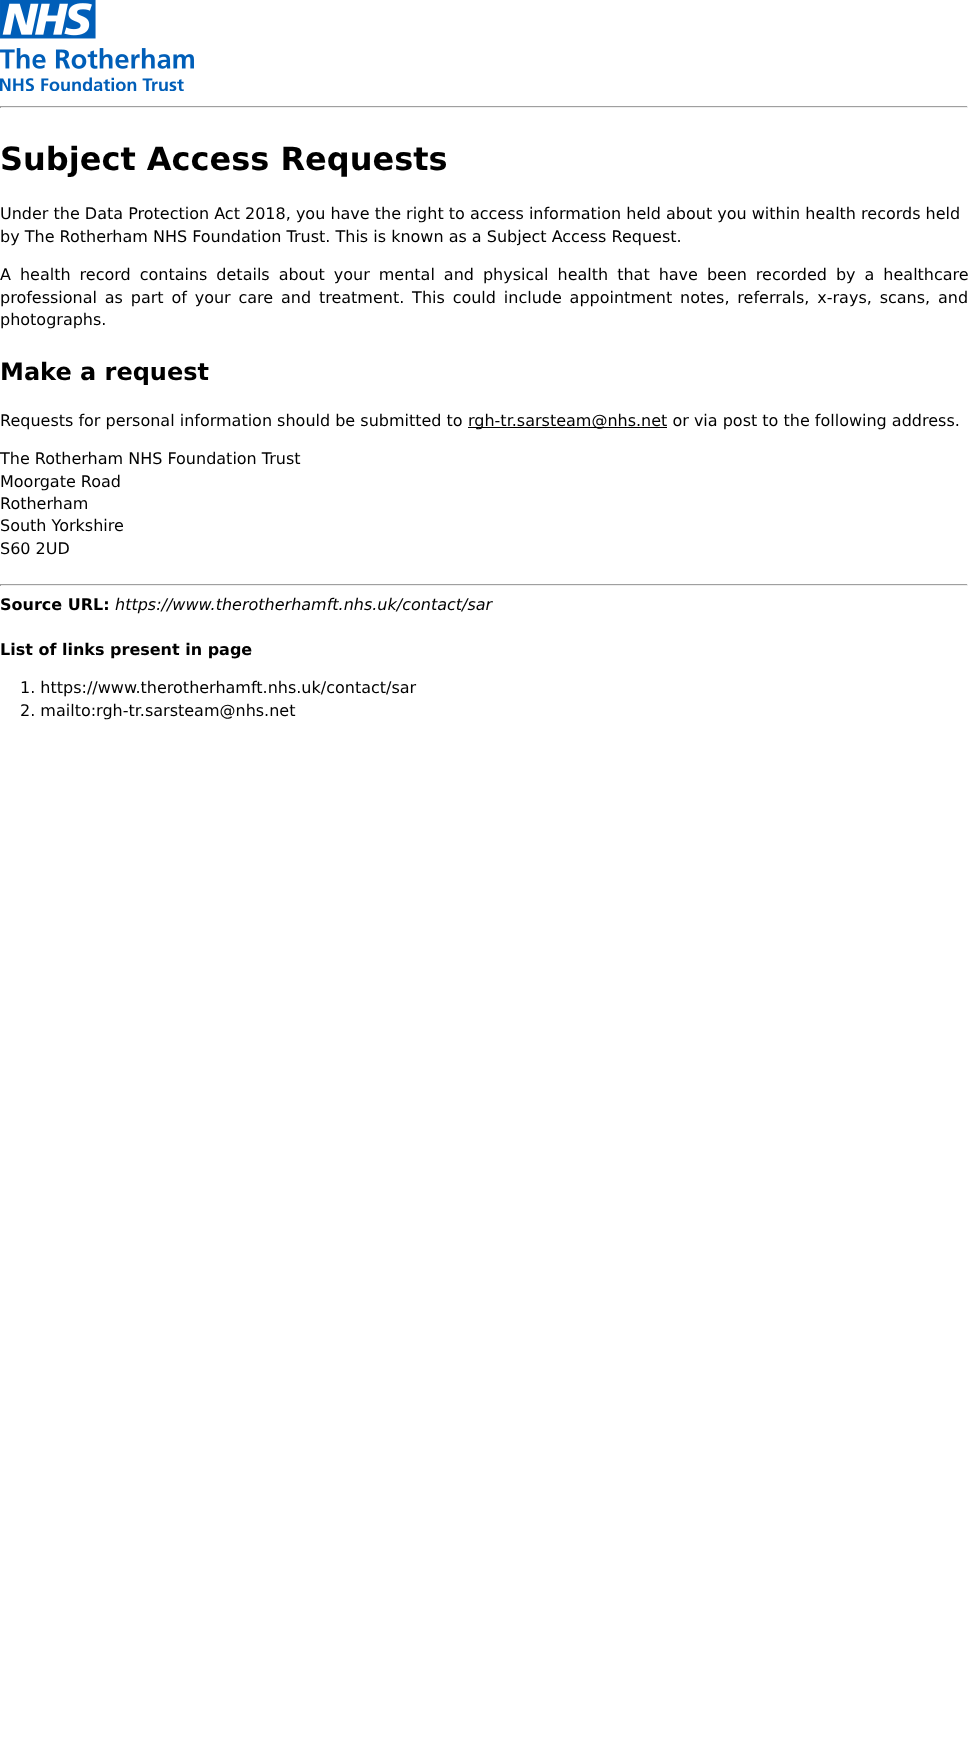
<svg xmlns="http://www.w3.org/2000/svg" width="968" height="1758">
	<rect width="100%" height="100%" fill="#FFFFFF" />
	<image x="0" y="0" width="194" height="91" href="assets/img1.png" />
	<rect x="0" y="106" width="968" height="1" fill="#9F9F9F" />
	<rect x="967" y="106" width="1" height="2" fill="#EEEEEE" />
	<rect x="0" y="107" width="968" height="1" fill="#EEEEEE" />
	<rect x="0" y="106" width="1" height="2" fill="#9F9F9F" />
	<text x="0" y="170" font-family="DejaVu Sans" font-size="32" font-weight="700" fill="#000000">Subject Access Requests</text>
	<g font-family="DejaVu Sans" font-size="16" fill="#000000">
		<text x="0" y="219">Under the Data Protection Act 2018, you have the right to access information held about you within health records held</text>
		<text x="0" y="242">by The Rotherham NHS Foundation Trust. This is known as a Subject Access Request.</text>
		<text x="0" y="280" word-spacing="3.9">A health record contains details about your mental and physical health that have been recorded by a healthcare</text>
		<text x="0" y="303" word-spacing="2.75">professional as part of your care and treatment. This could include appointment notes, referrals, x-rays, scans, and</text>
		<text x="0" y="325">photographs.</text>
	</g>
	<text x="0" y="380" font-family="DejaVu Sans" font-size="24" font-weight="700" fill="#000000">Make a request</text>
	<text x="0" y="426" font-family="DejaVu Sans" font-size="16" fill="#000000">Requests for personal information should be submitted to</text>
	<rect x="468" y="427" width="199" height="1" fill="#000000" />
	<g font-family="DejaVu Sans" font-size="16" fill="#000000">
		<text x="468" y="426">rgh-tr.sarsteam@nhs.net or via post to the following address.</text>
		<text x="0" y="464">The Rotherham NHS Foundation Trust</text>
		<text x="0" y="487">Moorgate Road</text>
		<text x="0" y="509">Rotherham</text>
		<text x="0" y="531">South Yorkshire</text>
		<text x="0" y="554">S60 2UD</text>
	</g>
	<rect x="0" y="584" width="968" height="1" fill="#9F9F9F" />
	<rect x="967" y="584" width="1" height="2" fill="#EEEEEE" />
	<rect x="0" y="585" width="968" height="1" fill="#EEEEEE" />
	<rect x="0" y="584" width="1" height="2" fill="#9F9F9F" />
	<text x="0" y="610" font-family="DejaVu Sans" font-size="16" font-weight="700" fill="#000000">Source URL:</text>
	<text x="115" y="610" font-family="DejaVu Sans" font-size="16" font-style="italic" fill="#000000">https://www.therotherhamft.nhs.uk/contact/sar</text>
	<text x="0" y="655" font-family="DejaVu Sans" font-size="16" font-weight="700" fill="#000000">List of links present in page</text>
	<g font-family="DejaVu Sans" font-size="16" fill="#000000">
		<text x="20" y="693">1. https://www.therotherhamft.nhs.uk/contact/sar</text>
		<text x="20" y="716">2. mailto:rgh-tr.sarsteam@nhs.net</text>
	</g>
</svg>
